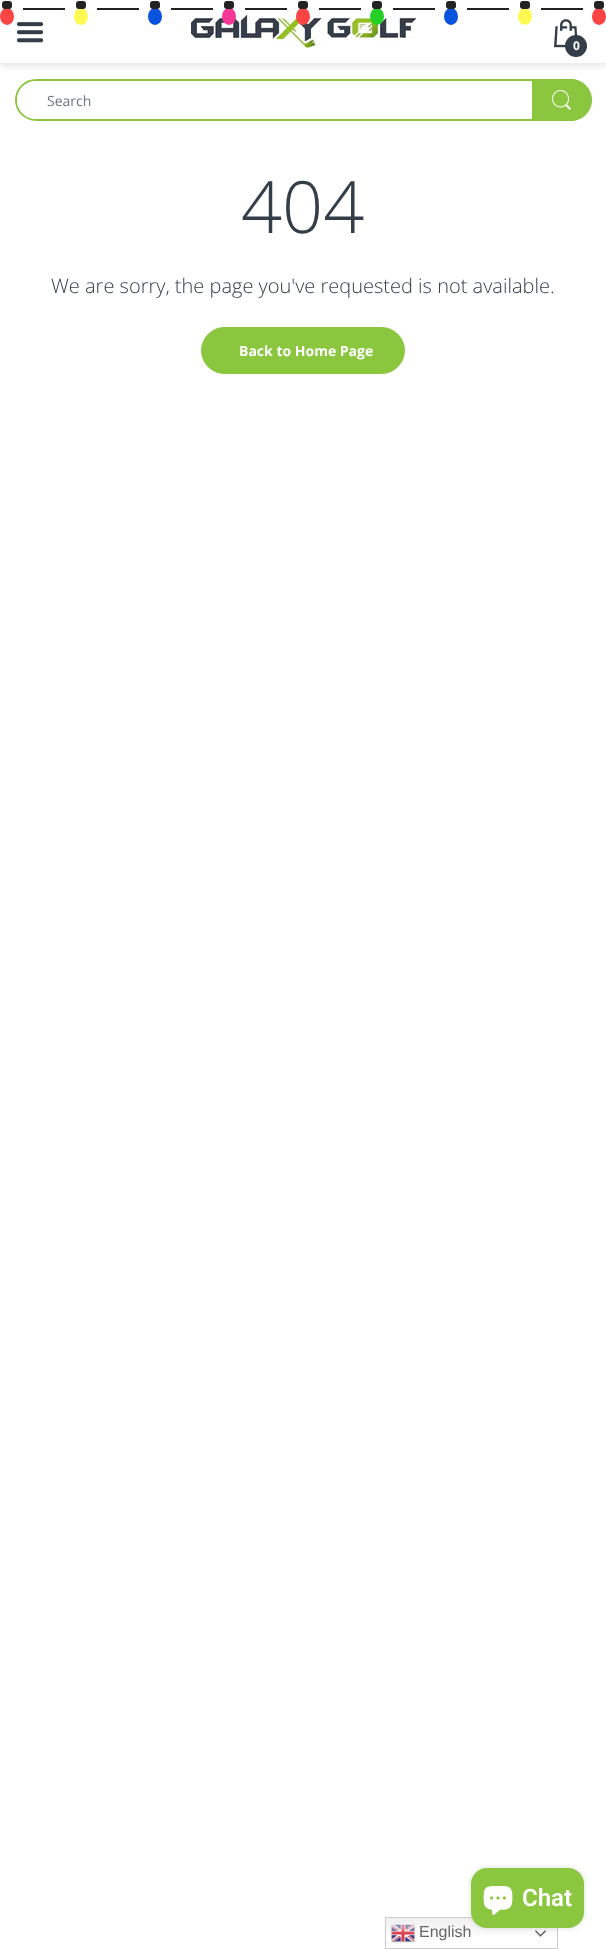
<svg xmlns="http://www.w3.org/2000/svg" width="606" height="1949">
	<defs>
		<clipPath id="clip1"><rect x="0" y="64" width="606" height="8" /></clipPath>
		<linearGradient id="g1" gradientUnits="userSpaceOnUse" x1="472" y1="1917" x2="472" y2="1949"><stop offset="0" stop-color="#EFEFEF" /><stop offset="0.7" stop-color="#FFFFFF" /></linearGradient>
	</defs>
	<rect width="100%" height="100%" fill="#FFFFFF" />
	<g clip-path="url(#clip1)">
		<rect x="0" y="0" width="606" height="64" fill="#C9C9C9" fill-opacity="0.75" filter="blur(4px)" />
	</g>
	<ellipse cx="7" cy="16.5" rx="7" ry="8.5" fill="#FB4545" />
	<rect x="2" y="1" width="10" height="8" rx="3" fill="#222222" />
	<rect x="23" y="8" width="42" height="2" fill="#222222" />
	<ellipse cx="81" cy="16.5" rx="7" ry="8.5" fill="#FFF952" />
	<rect x="76" y="1" width="10" height="8" rx="3" fill="#222222" />
	<rect x="97" y="8" width="42" height="2" fill="#222222" />
	<ellipse cx="155" cy="16.5" rx="7" ry="8.5" fill="#0A53DE" />
	<rect x="150" y="1" width="10" height="8" rx="3" fill="#222222" />
	<rect x="171" y="8" width="42" height="2" fill="#222222" />
	<image x="191" y="15" width="225" height="33" href="assets/img2.png" />
	<ellipse cx="229" cy="16.5" rx="7" ry="8.5" fill="#F53896" />
	<rect x="224" y="1" width="10" height="8" rx="3" fill="#222222" />
	<rect x="245" y="8" width="42" height="2" fill="#222222" />
	<ellipse cx="303" cy="16.5" rx="7" ry="8.5" fill="#FB4545" />
	<rect x="298" y="1" width="10" height="8" rx="3" fill="#222222" />
	<rect x="319" y="8" width="42" height="2" fill="#222222" />
	<ellipse cx="377" cy="16.5" rx="7" ry="8.5" fill="#24D024" />
	<rect x="372" y="1" width="10" height="8" rx="3" fill="#222222" />
	<rect x="393" y="8" width="42" height="2" fill="#222222" />
	<ellipse cx="451" cy="16.5" rx="7" ry="8.5" fill="#0A53DE" />
	<rect x="446" y="1" width="10" height="8" rx="3" fill="#222222" />
	<rect x="467" y="8" width="42" height="2" fill="#222222" />
	<ellipse cx="525" cy="16.5" rx="7" ry="8.5" fill="#FFF952" />
	<rect x="520" y="1" width="10" height="8" rx="3" fill="#222222" />
	<rect x="541" y="8" width="42" height="2" fill="#222222" />
	<ellipse cx="599" cy="16.5" rx="7" ry="8.5" fill="#FB4545" />
	<rect x="594" y="1" width="10" height="8" rx="3" fill="#222222" />
	<rect x="0" y="63" width="606" height="1" fill="#EBECED" />
	<image x="16" y="22" width="28" height="21" href="assets/img1.png" />
	<image x="554" y="19" width="24" height="29" href="assets/img3.png" />
	<circle cx="576" cy="46" r="11" fill="#333E48" />
	<text x="573" y="50" font-family="Open Sans" font-size="12" font-weight="700" fill="#FFFFFF">0</text>
	<rect x="16" y="80" width="574" height="40" rx="20" fill="none" stroke="#8AC73E" stroke-width="2" />
	<rect x="17" y="81" width="572" height="38" rx="19" fill="#FFFFFF" />
	<text x="47" y="106" font-family="Open Sans" font-size="14" fill="#6C757D">Search</text>
	<path d="M532 79H571C582.5 79 592 88.5 592 100C592 111.5 582.5 121 571 121H532Z" fill="#8AC73E" />
	<image x="552" y="90" width="19" height="20" href="assets/img4.png" />
	<text x="241" y="233" font-family="Open Sans" font-size="72" font-weight="300" fill="#333E48">404</text>
	<text x="51" y="293" font-family="Open Sans" font-size="20" font-weight="300" fill="#333E48">We are sorry, the page you've requested is not available.</text>
	<rect x="201.5" y="327.5" width="203" height="46" rx="23" fill="#8AC73E" stroke="#8AC73E" />
	<text x="239" y="356" font-family="Open Sans" font-size="14" font-weight="700" fill="#FFFFFF">Back to Home Page</text>
	<rect x="386" y="1918" width="171" height="18" fill="url(#g1)" />
	<rect x="385.5" y="1917.5" width="172" height="31" fill="none" stroke="#CCCCCC" />
	<image x="535" y="1930" width="11" height="7" href="assets/img7.png" />
	<rect x="471" y="1868" width="113" height="60" rx="16" fill="#000000" fill-opacity="0.15" filter="blur(2.5px)" />
	<rect x="471" y="1868" width="113" height="60" rx="16" fill="#8AC73E" />
	<image x="483" y="1886" width="30" height="29" href="assets/img5.png" />
	<text x="522" y="1906" font-family="Roboto" font-size="24" font-weight="600" fill="#FFFFFF">Chat</text>
	<image x="391" y="1924" width="24" height="19" href="assets/img6.png" />
	<text x="419" y="1937" font-family="Liberation Sans" font-size="16" fill="#666666">English</text>
</svg>
